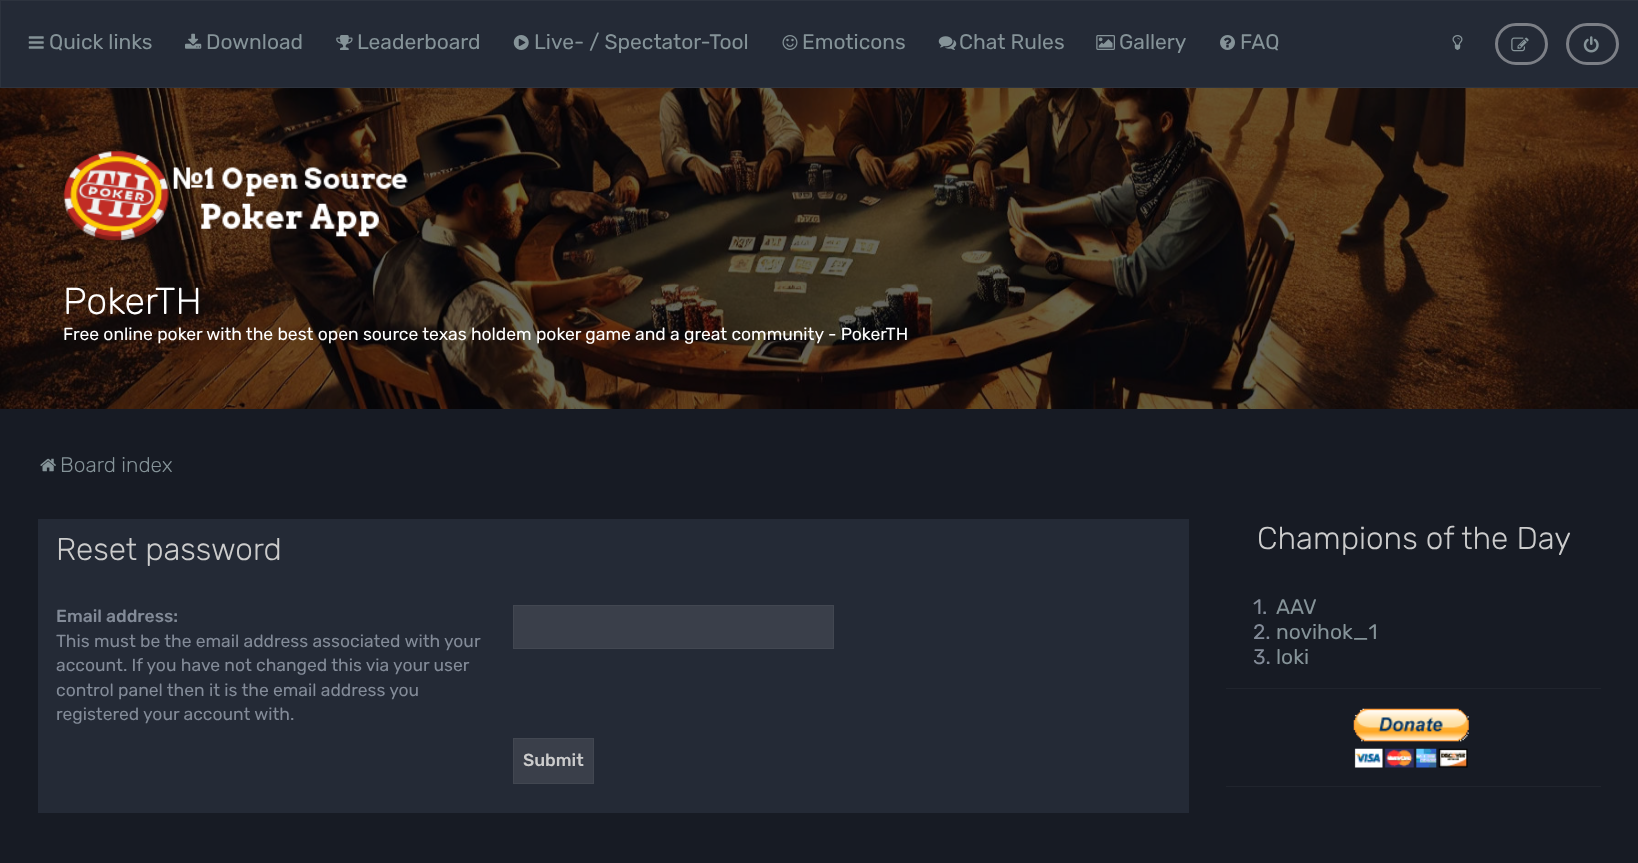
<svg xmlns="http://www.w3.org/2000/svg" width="1638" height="863">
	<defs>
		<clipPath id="clip1"><rect x="56" y="538" width="1114" height="256" /></clipPath>
	</defs>
	<rect width="100%" height="100%" fill="#FFFFFF" />
	<rect x="0.5" y="0.5" width="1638" height="87" fill="#242A36" stroke="#2D333E" />
	<image x="28" y="36" width="16" height="13" href="assets/img1.png" />
	<text x="49" y="49" font-family="Rubik" font-size="21" fill="#859398">Quick links</text>
	<image x="185" y="33" width="17" height="16" href="assets/img2.png" />
	<text x="206" y="49" font-family="Rubik" font-size="21" fill="#859398">Download</text>
	<image x="336" y="35" width="17" height="15" href="assets/img3.png" />
	<text x="357" y="49" font-family="Rubik" font-size="21" fill="#859398">Leaderboard</text>
	<image x="513" y="35" width="16" height="15" href="assets/img4.png" />
	<text x="534" y="49" font-family="Rubik" font-size="21" fill="#859398">Live- / Spectator-Tool</text>
	<image x="782" y="35" width="16" height="15" href="assets/img5.png" />
	<text x="802" y="49" font-family="Rubik" font-size="21" fill="#859398">Emoticons</text>
	<image x="938" y="36" width="19" height="14" href="assets/img6.png" />
	<text x="959" y="49" font-family="Rubik" font-size="21" fill="#859398">Chat Rules</text>
	<image x="1096" y="35" width="19" height="15" href="assets/img7.png" />
	<text x="1119" y="49" font-family="Rubik" font-size="21" fill="#859398">Gallery</text>
	<image x="1220" y="35" width="15" height="15" href="assets/img8.png" />
	<text x="1240" y="49" font-family="Rubik" font-size="21" fill="#859398">FAQ</text>
	<image x="1452" y="35" width="11" height="15" href="assets/img9.png" />
	<rect x="1496.5" y="24.5" width="50" height="39" rx="19.5" fill="none" stroke="#7C7F86" stroke-width="3" />
	<image x="1511" y="37" width="18" height="15" href="assets/img10.png" />
	<rect x="1567.5" y="24.5" width="50" height="39" rx="19.5" fill="none" stroke="#7C7F86" stroke-width="3" />
	<image x="1583" y="36" width="16" height="17" href="assets/img11.png" />
	<image x="0" y="88" width="1638" height="321" href="assets/img15.png" />
	<image x="63" y="151" width="345" height="90" href="assets/img12.png" />
	<text x="63" y="314" font-family="Rubik" font-size="37.5" font-weight="300" fill="#FFFFFF">PokerTH</text>
	<text x="63" y="340" font-family="Rubik" font-size="17.5" fill="#FFFFFF">Free online poker with the best open source texas holdem poker game and a great community - PokerTH</text>
	<rect x="0" y="409" width="1638" height="454" fill="#171B24" />
	<image x="40" y="458" width="16" height="14" href="assets/img13.png" />
	<text x="60" y="472" font-family="Rubik" font-size="21" font-weight="300" fill="#859398">Board index</text>
	<rect x="38" y="519" width="1151" height="294" fill="#242A36" />
	<g clip-path="url(#clip1)">
		<text x="56" y="560" font-family="Rubik" font-size="31.5" font-weight="300" fill="#CCCCCC">Reset password</text>
	</g>
	<text x="56" y="622" font-family="Rubik" font-size="17.5" font-weight="500" fill="#838B98">Email address:</text>
	<g font-family="Rubik" font-size="17.5" fill="#838B98">
		<text x="56" y="647">This must be the email address associated with your</text>
		<text x="56" y="671">account. If you have not changed this via your user</text>
		<text x="56" y="696">control panel then it is the email address you</text>
		<text x="56" y="720">registered your account with.</text>
	</g>
	<rect x="513.5" y="605.5" width="320" height="43" fill="#3A3F4A" stroke="#424751" />
	<rect x="513.5" y="738.5" width="80" height="45" fill="#3A3F4A" stroke="#424751" />
	<text x="523" y="766" font-family="Rubik" font-size="17.5" font-weight="500" fill="#CCCCCC">Submit</text>
	<text x="1257" y="549" font-family="Rubik" font-size="31.5" font-weight="300" fill="#CCCCCC">Champions of the Day</text>
	<text x="1253" y="614" font-family="Rubik" font-size="21" fill="#838B98">1.</text>
	<text x="1276" y="614" font-family="Rubik" font-size="21" fill="#859398">AAV</text>
	<text x="1253" y="639" font-family="Rubik" font-size="21" fill="#838B98">2.</text>
	<text x="1276" y="639" font-family="Rubik" font-size="21" fill="#859398">novihok_1</text>
	<text x="1253" y="664" font-family="Rubik" font-size="21" fill="#838B98">3.</text>
	<text x="1276" y="664" font-family="Rubik" font-size="21" fill="#859398">loki</text>
	<rect x="1226" y="688" width="375" height="1" fill="#20242D" />
	<image x="1353" y="708" width="116" height="60" href="assets/img14.png" />
	<rect x="1226" y="786" width="375" height="1" fill="#20242D" />
</svg>
